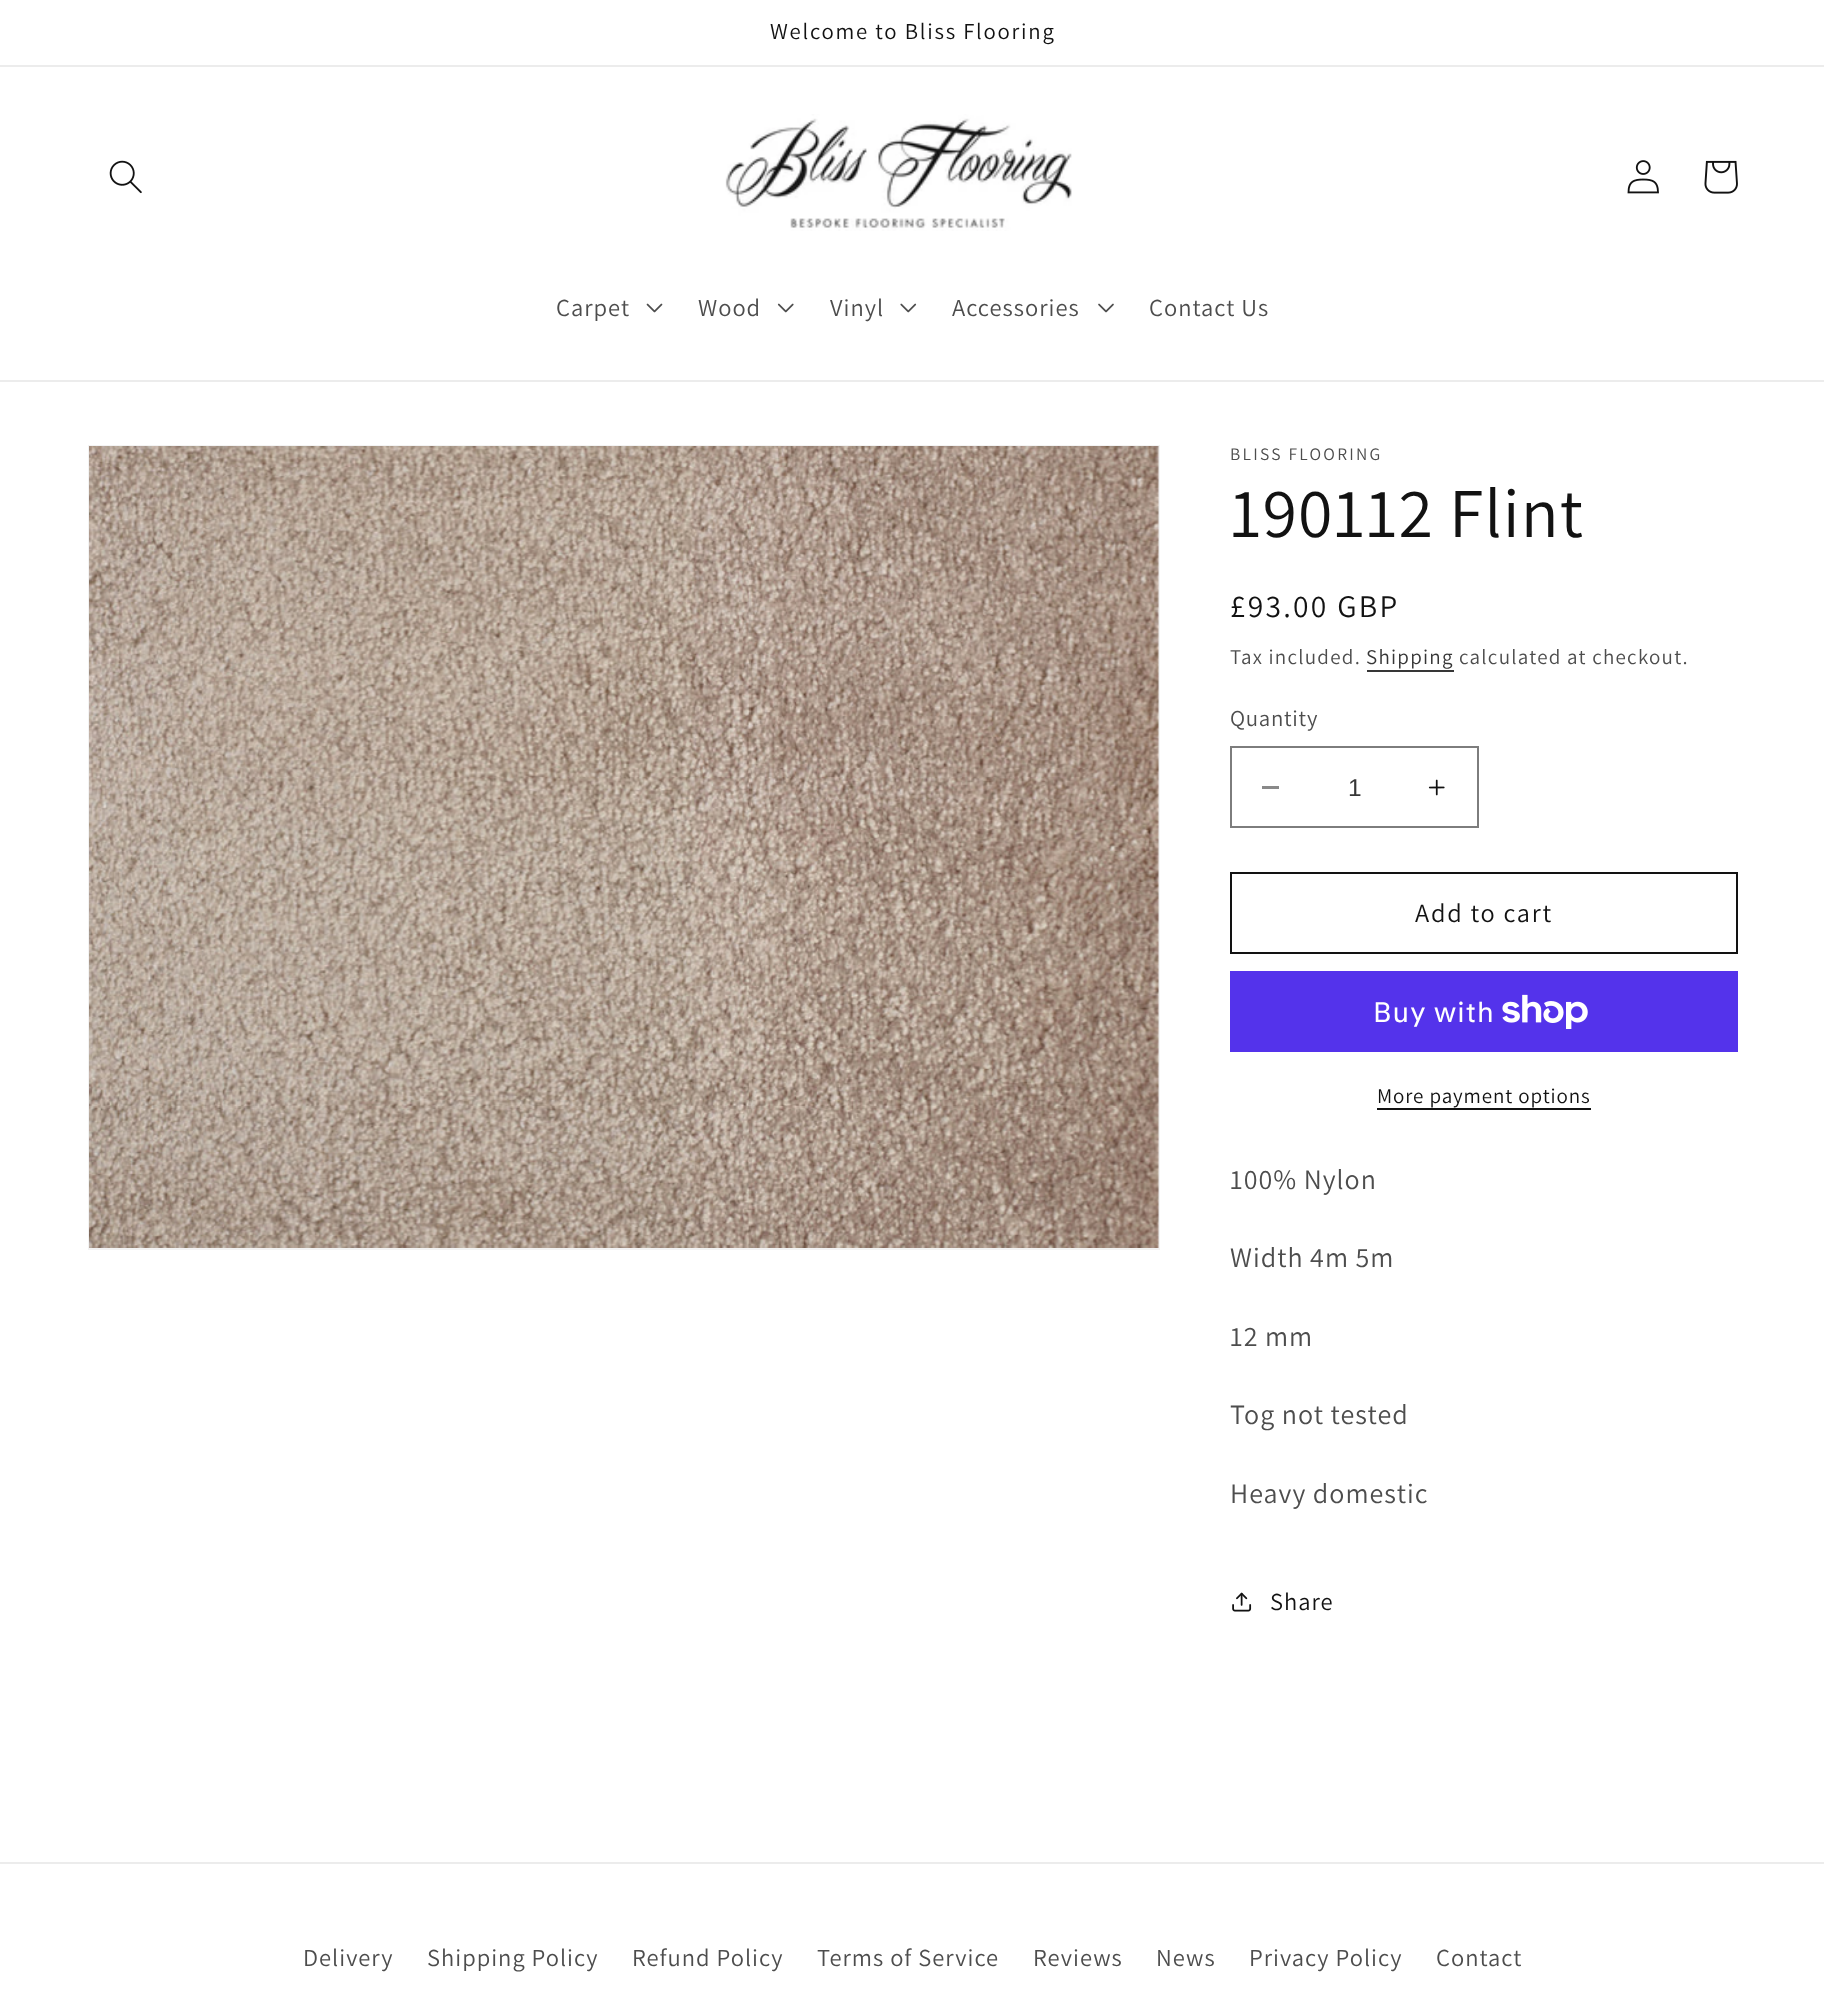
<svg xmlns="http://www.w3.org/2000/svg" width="1824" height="1998">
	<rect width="100%" height="100%" fill="#FFFFFF" />
	<rect x="0" y="65" width="1824" height="2" fill="#ECECEC" />
	<text x="770" y="39" font-family="Assistant" font-size="22.75" letter-spacing="1.75" fill="#121212">Welcome to Bliss Flooring</text>
	<rect x="0" y="380" width="1824" height="2" fill="#ECECEC" />
	<image x="109" y="160" width="33" height="34" href="assets/img1.png" />
	<image x="725" y="114" width="347" height="117" href="assets/img2.png" />
	<image x="1627" y="160" width="32" height="34" href="assets/img3.png" />
	<image x="1704" y="160" width="34" height="34" href="assets/img4.png" />
	<text x="556" y="316" font-family="Assistant" font-size="24.5" letter-spacing="1" fill="#4D4D4D">Carpet</text>
	<image x="646" y="303" width="17" height="10" href="assets/img5.png" />
	<text x="698" y="316" font-family="Assistant" font-size="24.5" letter-spacing="1" fill="#4D4D4D">Wood</text>
	<image x="777" y="303" width="17" height="10" href="assets/img6.png" />
	<text x="830" y="316" font-family="Assistant" font-size="24.5" letter-spacing="1" fill="#4D4D4D">Vinyl</text>
	<image x="900" y="303" width="17" height="10" href="assets/img7.png" />
	<text x="952" y="316" font-family="Assistant" font-size="24.5" letter-spacing="1" fill="#4D4D4D">Accessories</text>
	<image x="1098" y="303" width="16" height="10" href="assets/img8.png" />
	<text x="1149" y="316" font-family="Assistant" font-size="24.5" letter-spacing="1" fill="#4D4D4D">Contact Us</text>
	<rect x="89" y="446" width="1070" height="803" fill="none" stroke="#F3F3F3" stroke-width="2" />
	<image x="89" y="446" width="1070" height="802" href="assets/img9.png" />
	<text x="1230" y="460" font-family="Assistant" font-size="17.5" letter-spacing="2.25" fill="#4D4D4D">BLISS FLOORING</text>
	<text x="1230" y="537" font-family="Assistant" font-size="70" letter-spacing="1" fill="#121212">190112 Flint</text>
	<text x="1230" y="617" font-family="Assistant" font-size="31.5" letter-spacing="2.25" fill="#121212">£93.00 GBP</text>
	<text x="1230" y="664" font-family="Assistant" font-size="21" letter-spacing="1.25" fill="#4D4D4D">Tax included.</text>
	<text x="1366" y="664" font-family="Assistant" font-size="21" letter-spacing="1.25" fill="#363636">Shipping</text>
	<rect x="1367" y="670" width="87" height="2" fill="#363636" />
	<text x="1459" y="664" font-family="Assistant" font-size="21" letter-spacing="1.25" fill="#4D4D4D">calculated at checkout.</text>
	<text x="1230" y="726" font-family="Assistant" font-size="22.75" letter-spacing="0.75" fill="#4D4D4D">Quantity</text>
	<rect x="1262" y="786" width="17" height="3" fill="#898989" />
	<image x="1428" y="779" width="17" height="17" href="assets/img10.png" />
	<rect x="1231" y="747" width="247" height="80" fill="none" stroke="#7D7D7D" stroke-width="2" />
	<text x="1348" y="796" font-family="Liberation Sans" font-size="24.5" fill="#363636">1</text>
	<rect x="1231" y="873" width="506" height="80" fill="none" stroke="#121212" stroke-width="2" />
	<text x="1415" y="922" font-family="Assistant" font-size="26.25" letter-spacing="1.75" fill="#121212">Add to cart</text>
	<rect x="1230" y="971" width="508" height="81" fill="#5433EB" />
	<text x="1373" y="1022" font-family="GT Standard" font-size="28" letter-spacing="1" fill="#FFFFFF">Buy with</text>
	<image x="1502" y="994" width="86" height="35" href="assets/img11.png" />
	<text x="1377" y="1103" font-family="Assistant" font-size="21" letter-spacing="0.9" fill="#121212">More payment options</text>
	<rect x="1377" y="1108" width="214" height="2" fill="#121212" />
	<g font-family="Assistant" font-size="28" letter-spacing="1" fill="#4D4D4D">
		<text x="1230" y="1189">100% Nylon</text>
		<text x="1230" y="1267">Width 4m 5m</text>
		<text x="1230" y="1346">12 mm</text>
		<text x="1230" y="1424">Tog not tested</text>
		<text x="1230" y="1503">Heavy domestic</text>
	</g>
	<image x="1232" y="1592" width="20" height="20" href="assets/img12.png" />
	<text x="1270" y="1610" font-family="Assistant" font-size="24.5" letter-spacing="1" fill="#121212">Share</text>
	<rect x="0" y="1862" width="1824" height="2" fill="#ECECEC" />
	<g font-family="Assistant" font-size="24.5" letter-spacing="1" fill="#4D4D4D">
		<text x="303" y="1966">Delivery</text>
		<text x="427" y="1966">Shipping Policy</text>
		<text x="632" y="1966">Refund Policy</text>
		<text x="817" y="1966">Terms of Service</text>
		<text x="1033" y="1966">Reviews</text>
		<text x="1156" y="1966">News</text>
		<text x="1249" y="1966">Privacy Policy</text>
		<text x="1436" y="1966">Contact</text>
	</g>
</svg>
